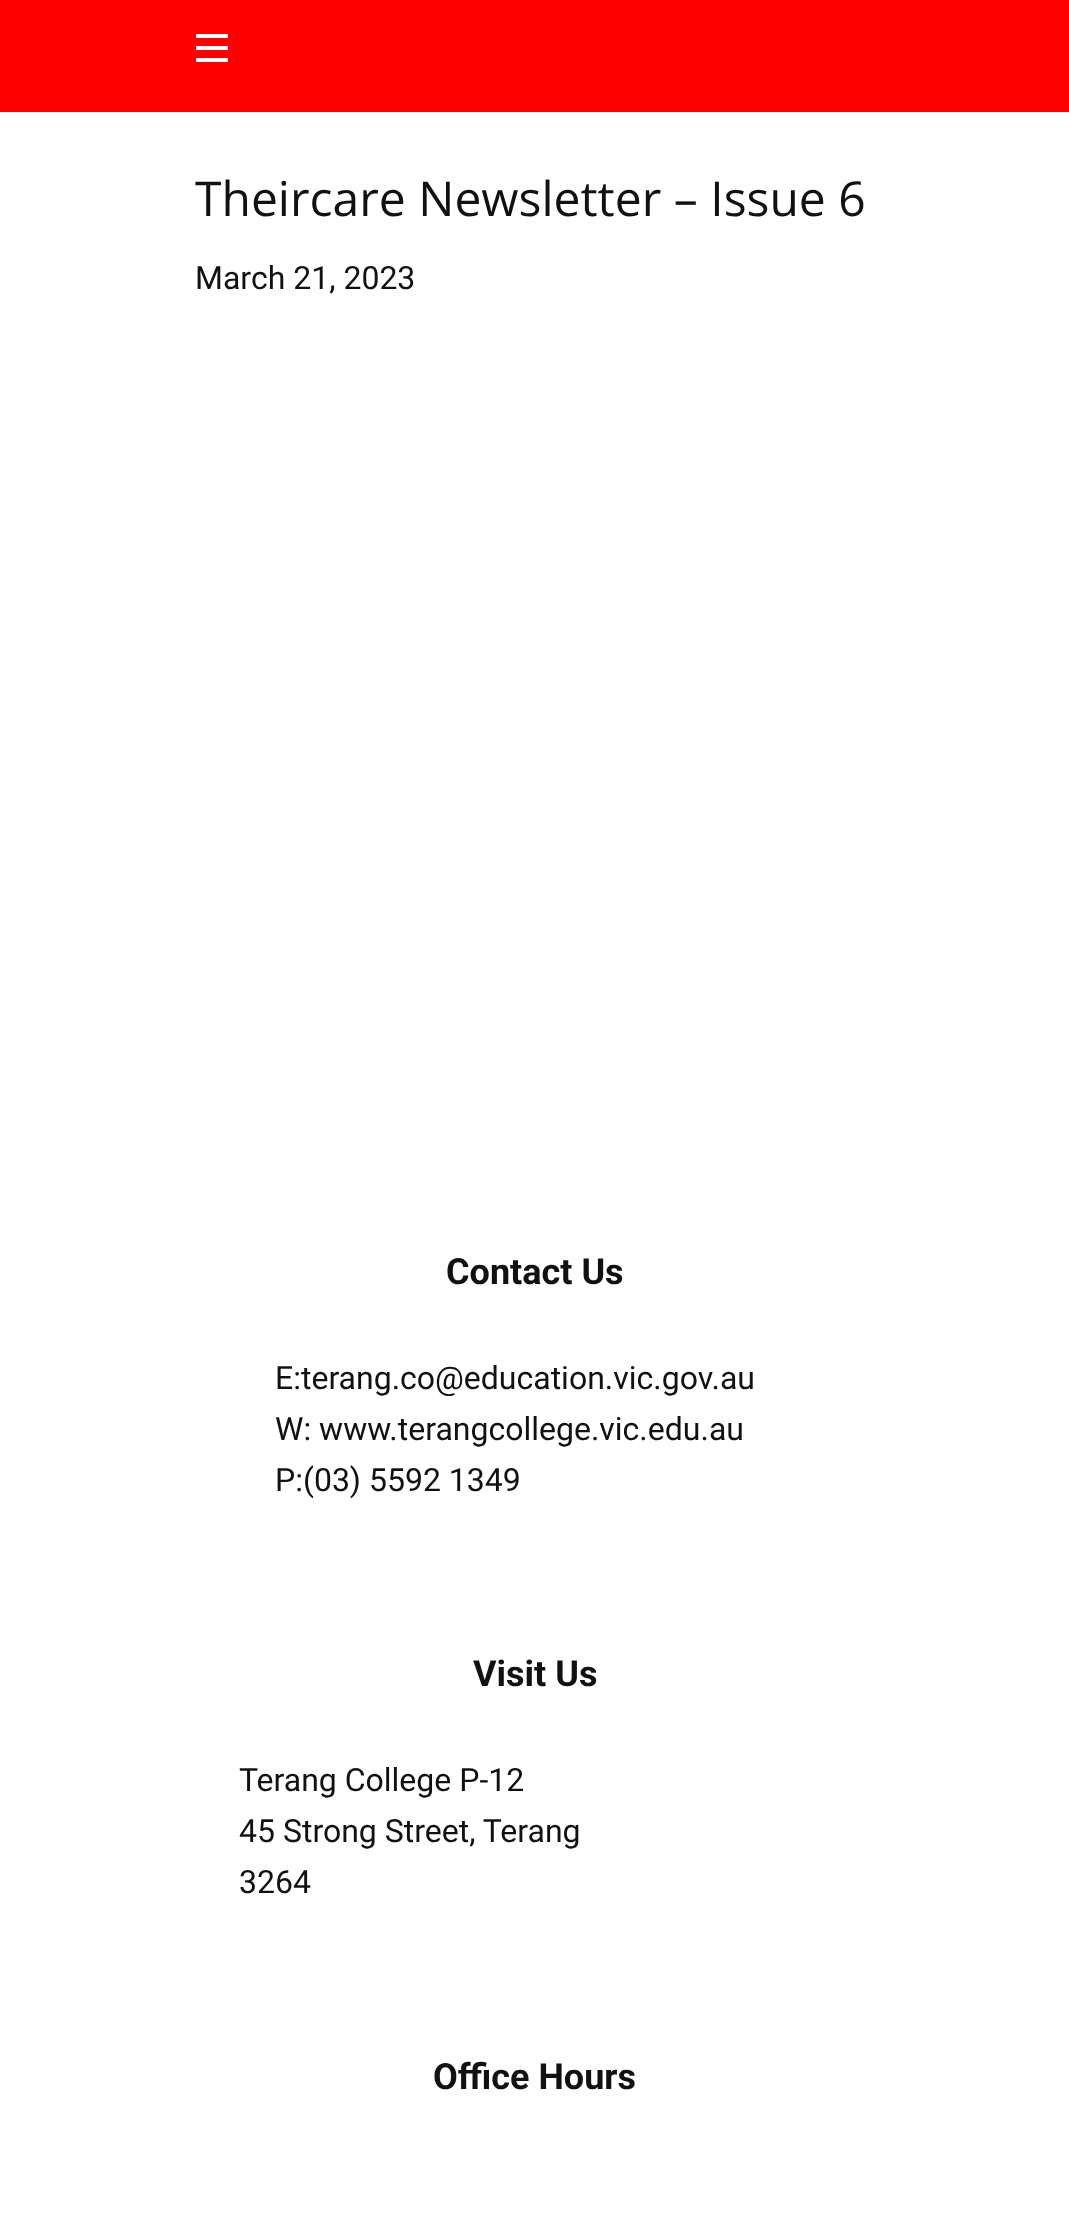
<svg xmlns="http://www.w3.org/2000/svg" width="1069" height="2224">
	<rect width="100%" height="100%" fill="#FFFFFF" />
	<rect x="0" y="0" width="1069" height="112" fill="#FF0000" />
	<rect x="196" y="34" width="32" height="4" fill="#FFFFFF" />
	<rect x="196" y="46" width="32" height="4" fill="#FFFFFF" />
	<rect x="196" y="58" width="32" height="4" fill="#FFFFFF" />
	<text x="195" y="216" font-family="Open Sans" font-size="48" fill="#111111">Theircare Newsletter – Issue 6</text>
	<text x="195" y="289" font-family="Roboto" font-size="32" fill="#111111">March 21, 2023</text>
	<text x="446" y="1284" font-family="Roboto" font-size="36" font-weight="700" fill="#111111">Contact Us</text>
	<g font-family="Roboto" font-size="32" fill="#111111">
		<text x="275" y="1389">E:terang.co@education.vic.gov.au</text>
		<text x="275" y="1440">W: www.terangcollege.vic.edu.au</text>
		<text x="275" y="1491">P:(03) 5592 1349</text>
	</g>
	<text x="473" y="1686" font-family="Roboto" font-size="36" font-weight="700" fill="#111111">Visit Us</text>
	<g font-family="Roboto" font-size="32" fill="#111111">
		<text x="239" y="1791">Terang College P-12</text>
		<text x="239" y="1842">45 Strong Street, Terang</text>
		<text x="239" y="1893">3264</text>
	</g>
	<text x="433" y="2089" font-family="Roboto" font-size="36" font-weight="700" fill="#111111">Office Hours</text>
</svg>
